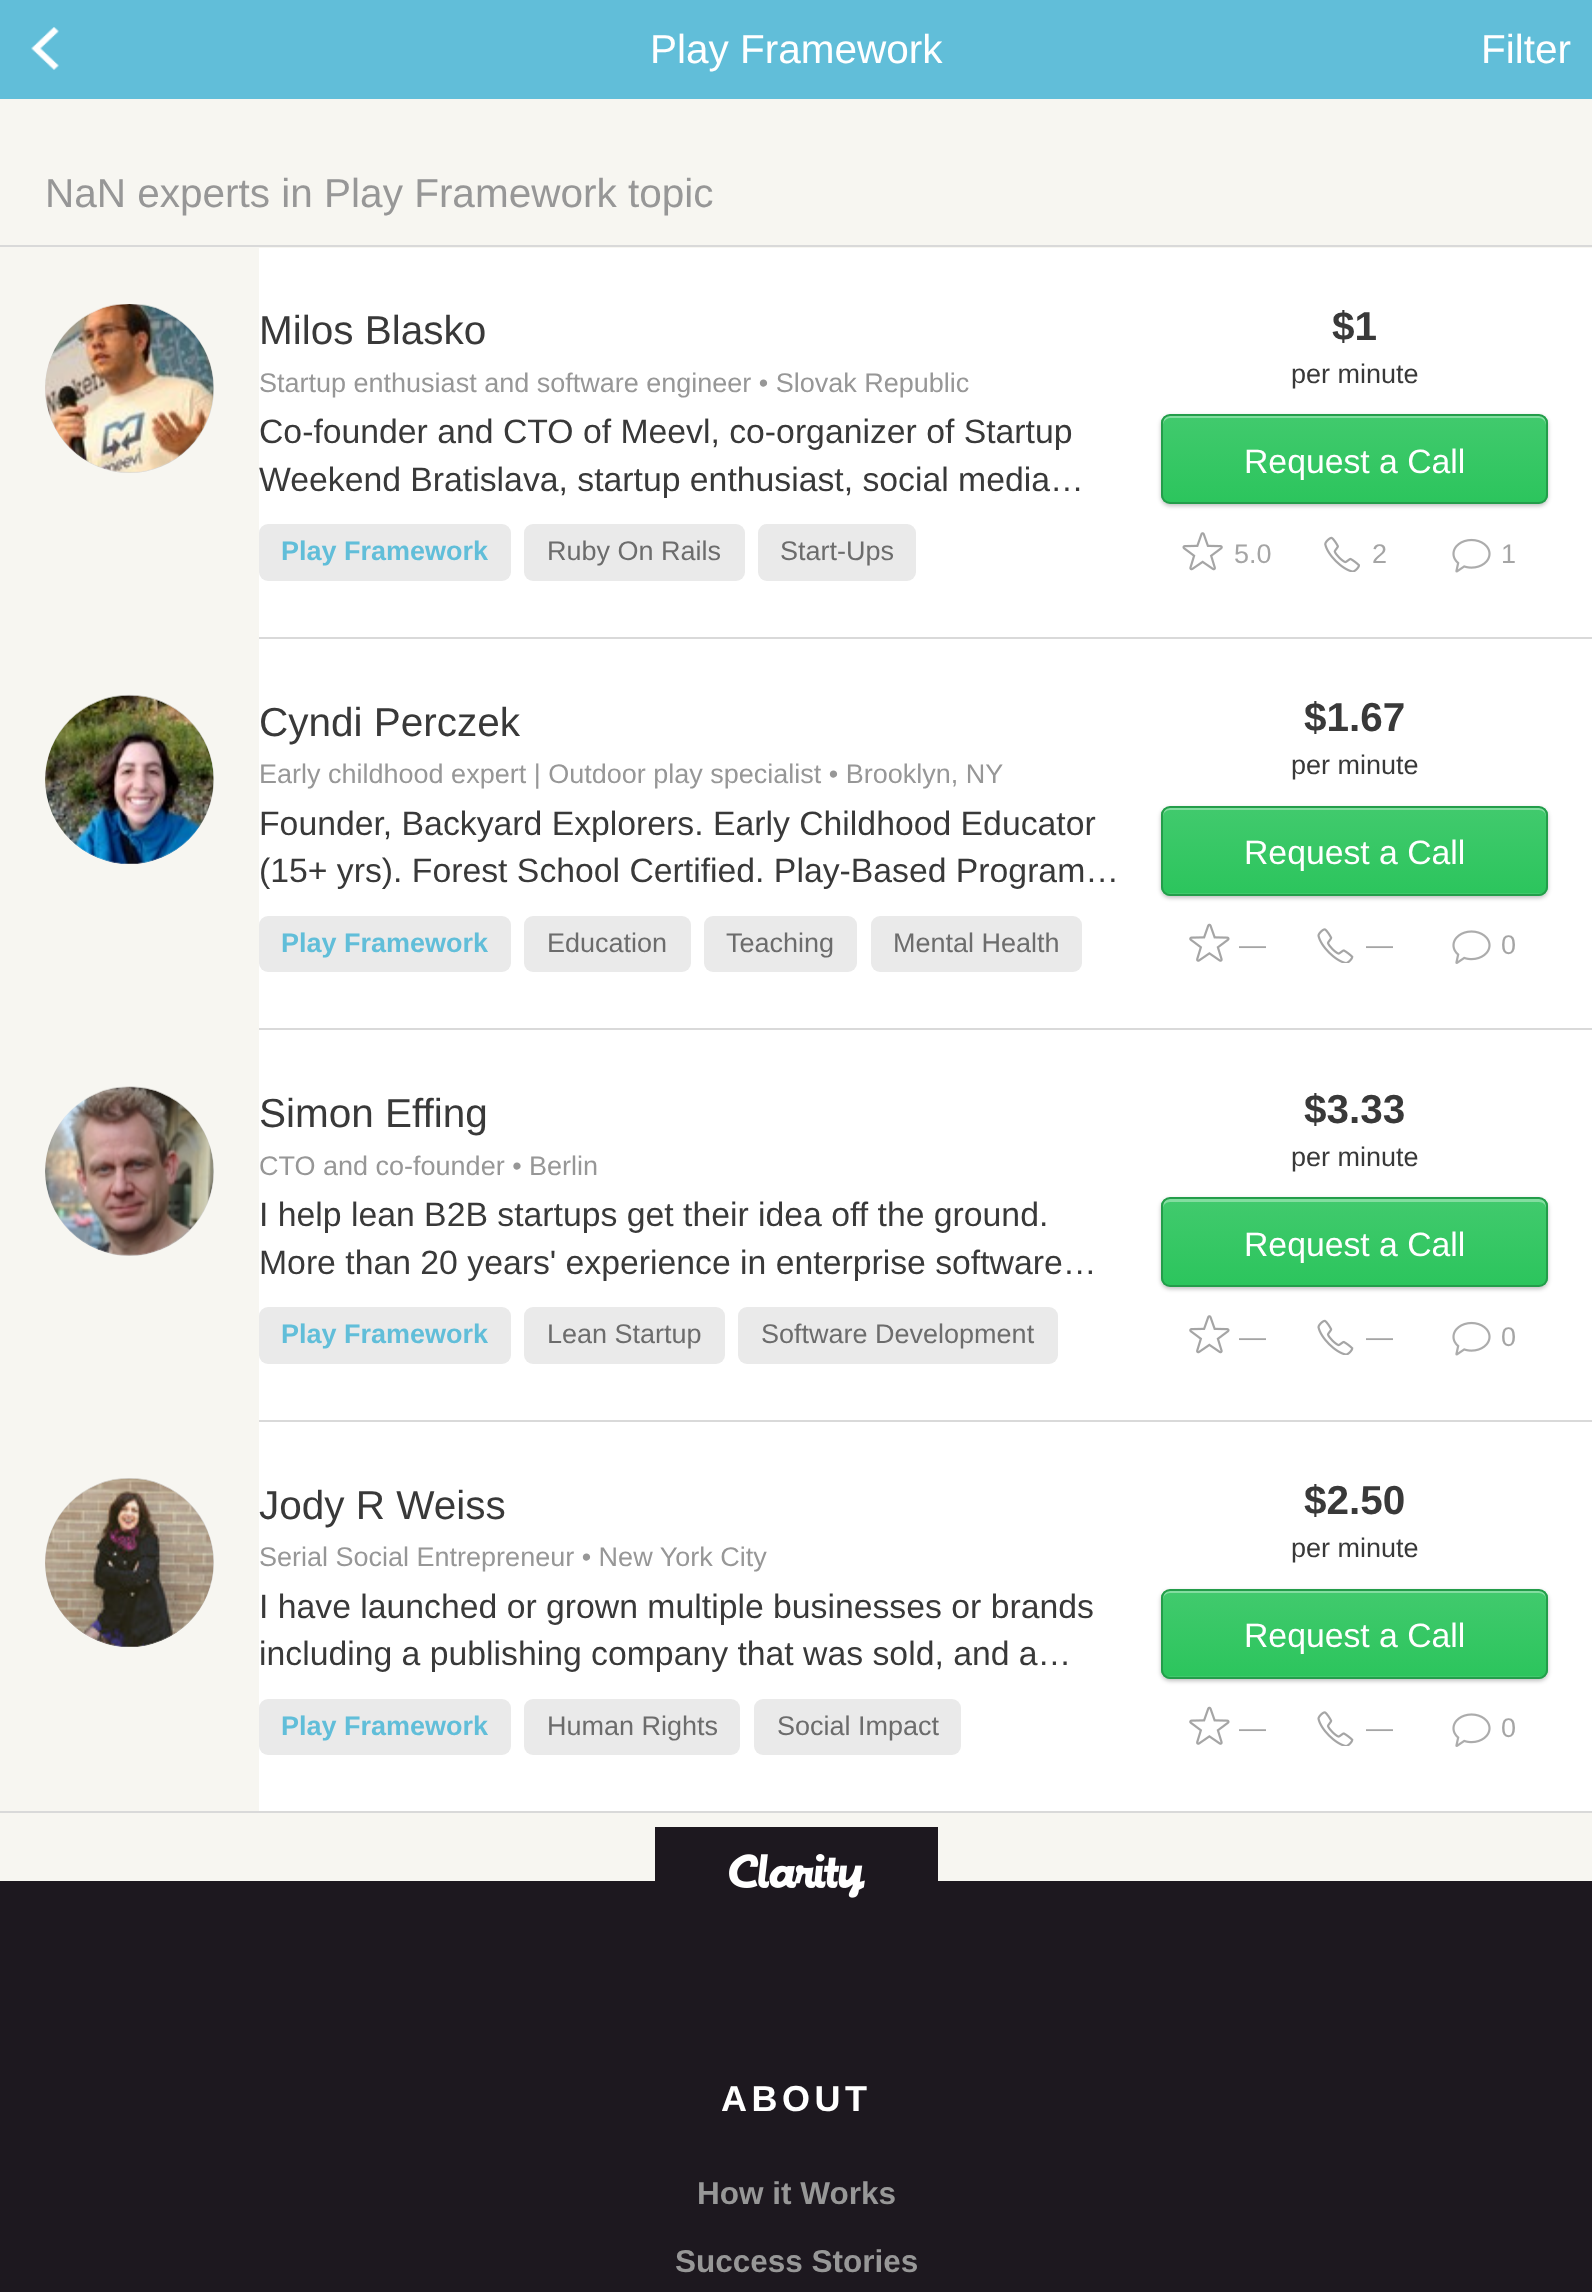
<svg xmlns="http://www.w3.org/2000/svg" width="1592" height="2292">
	<defs>
		<clipPath id="clip1"><rect x="1161" y="414" width="387" height="90" rx="9" /></clipPath>
		<linearGradient id="g1" gradientUnits="userSpaceOnUse" x1="1355" y1="416" x2="1355" y2="502"><stop offset="0" stop-color="#41CA6D" /><stop offset="1" stop-color="#2CC55D" /></linearGradient>
		<clipPath id="clip2"><rect x="1161" y="806" width="387" height="90" rx="9" /></clipPath>
		<linearGradient id="g2" gradientUnits="userSpaceOnUse" x1="1355" y1="808" x2="1355" y2="893"><stop offset="0" stop-color="#41CA6D" /><stop offset="1" stop-color="#2CC55D" /></linearGradient>
		<linearGradient id="g3" gradientUnits="userSpaceOnUse" x1="1355" y1="893" x2="1355" y2="979"><stop offset="0" stop-color="#41CA6D" /><stop offset="1" stop-color="#2CC55D" /></linearGradient>
		<clipPath id="clip3"><rect x="1161" y="1197" width="387" height="90" rx="9" /></clipPath>
		<linearGradient id="g4" gradientUnits="userSpaceOnUse" x1="1355" y1="1199" x2="1355" y2="1285"><stop offset="0" stop-color="#41CA6D" /><stop offset="1" stop-color="#2CC55D" /></linearGradient>
		<clipPath id="clip4"><rect x="1161" y="1589" width="387" height="90" rx="9" /></clipPath>
		<linearGradient id="g5" gradientUnits="userSpaceOnUse" x1="1355" y1="1591" x2="1355" y2="1676"><stop offset="0" stop-color="#41CA6D" /><stop offset="1" stop-color="#2CC55D" /></linearGradient>
		<linearGradient id="g6" gradientUnits="userSpaceOnUse" x1="1355" y1="1676" x2="1355" y2="1762"><stop offset="0" stop-color="#41CA6D" /><stop offset="1" stop-color="#2CC55D" /></linearGradient>
	</defs>
	<rect width="100%" height="100%" fill="#61BED9" />
	<image x="31" y="27" width="28" height="43" href="assets/img1.png" />
	<g font-family="Liberation Sans" font-size="40.5" fill="#FFFFFF">
		<text x="650" y="63">Play Framework</text>
		<text x="1481" y="63">Filter</text>
	</g>
	<rect x="0" y="99" width="1592" height="1782" fill="#F7F6F1" />
	<text x="45" y="207" font-family="Liberation Sans" font-size="40.5" fill="#979797">NaN experts in Play Framework topic</text>
	<rect x="0" y="245" width="1592" height="2" fill="#D9D9D9" />
	<rect x="0" y="1811" width="1592" height="2" fill="#D9D9D9" />
	<rect x="259" y="248" width="1333" height="389" fill="#FFFFFF" />
	<circle cx="129.5" cy="388.5" r="84.5" fill="#D9D9D9" />
	<image x="45" y="304" width="169" height="169" href="assets/img2.png" />
	<text x="259" y="344" font-family="Liberation Sans" font-size="40.5" fill="#393939">Milos Blasko</text>
	<text x="259" y="392" font-family="Liberation Sans" font-size="27" fill="#979797">Startup enthusiast and software engineer • Slovak Republic</text>
	<g font-family="Liberation Sans" font-size="33.75" fill="#393939">
		<text x="259" y="443">Co-founder and CTO of Meevl, co-organizer of Startup</text>
		<text x="259" y="491">Weekend Bratislava, startup enthusiast, social media…</text>
	</g>
	<rect x="259" y="524" width="252" height="57" rx="9" fill="#EAEAEA" />
	<text x="281" y="560" font-family="Liberation Sans" font-size="27" font-weight="700" fill="#61BED9">Play Framework</text>
	<rect x="524" y="524" width="221" height="57" rx="9" fill="#EAEAEA" />
	<text x="547" y="560" font-family="Liberation Sans" font-size="27" fill="#6C6C6C">Ruby On Rails</text>
	<rect x="758" y="524" width="158" height="57" rx="9" fill="#EAEAEA" />
	<text x="780" y="560" font-family="Liberation Sans" font-size="27" fill="#6C6C6C">Start-Ups</text>
	<text x="1332" y="340" font-family="Liberation Sans" font-size="40.5" font-weight="700" fill="#393939">$1</text>
	<text x="1291" y="383" font-family="Liberation Sans" font-size="27" fill="#393939">per minute</text>
	<rect x="1161" y="416" width="387" height="90" rx="9" fill="#000000" fill-opacity="0.25" filter="blur(2px)" />
	<g clip-path="url(#clip1)">
		<rect x="1161" y="416" width="387" height="86" fill="url(#g1)" />
	</g>
	<path d="M1170 418H1539C1543 418 1546 422 1546 425V423C1546 419 1543 416 1539 416H1170C1166 416 1163 419 1163 423V425C1163 422 1166 418 1170 418Z" fill="#83DDA0" />
	<rect x="1162" y="415" width="385" height="88" rx="8" fill="none" stroke="#239D4A" stroke-width="2" />
	<text x="1244" y="473" font-family="Liberation Sans" font-size="33.75" fill="#FFFFFF">Request a Call</text>
	<image x="1182" y="532" width="41" height="39" href="assets/img3.png" />
	<text x="1234" y="563" font-family="Liberation Sans" font-size="27" fill="#A5A5A5">5.0</text>
	<image x="1324" y="536" width="36" height="36" href="assets/img4.png" />
	<text x="1372" y="563" font-family="Liberation Sans" font-size="27" fill="#A5A5A5">2</text>
	<image x="1452" y="538" width="39" height="35" href="assets/img5.png" />
	<text x="1501" y="563" font-family="Liberation Sans" font-size="27" fill="#A5A5A5">1</text>
	<rect x="259" y="639" width="1333" height="389" fill="#FFFFFF" />
	<rect x="259" y="637" width="1333" height="2" fill="#D9D9D9" />
	<circle cx="129.5" cy="779.5" r="84.5" fill="#D9D9D9" />
	<image x="45" y="694" width="169" height="170" href="assets/img6.png" />
	<text x="259" y="736" font-family="Liberation Sans" font-size="40.5" fill="#393939">Cyndi Perczek</text>
	<text x="259" y="783" font-family="Liberation Sans" font-size="27" fill="#979797">Early childhood expert | Outdoor play specialist • Brooklyn, NY</text>
	<g font-family="Liberation Sans" font-size="33.75" fill="#393939">
		<text x="259" y="835">Founder, Backyard Explorers. Early Childhood Educator</text>
		<text x="259" y="882">(15+ yrs). Forest School Certified. Play-Based Program…</text>
	</g>
	<rect x="259" y="916" width="252" height="56" rx="9" fill="#EAEAEA" />
	<text x="281" y="952" font-family="Liberation Sans" font-size="27" font-weight="700" fill="#61BED9">Play Framework</text>
	<rect x="524" y="916" width="167" height="56" rx="9" fill="#EAEAEA" />
	<text x="547" y="952" font-family="Liberation Sans" font-size="27" fill="#6C6C6C">Education</text>
	<rect x="704" y="916" width="153" height="56" rx="9" fill="#EAEAEA" />
	<text x="726" y="952" font-family="Liberation Sans" font-size="27" fill="#6C6C6C">Teaching</text>
	<rect x="871" y="916" width="211" height="56" rx="9" fill="#EAEAEA" />
	<text x="893" y="952" font-family="Liberation Sans" font-size="27" fill="#6C6C6C">Mental Health</text>
	<text x="1304" y="731" font-family="Liberation Sans" font-size="40.5" font-weight="700" fill="#393939">$1.67</text>
	<text x="1291" y="774" font-family="Liberation Sans" font-size="27" fill="#393939">per minute</text>
	<rect x="1161" y="808" width="387" height="90" rx="9" fill="#000000" fill-opacity="0.25" filter="blur(2px)" />
	<g clip-path="url(#clip2)">
		<rect x="1161" y="808" width="387" height="85" fill="url(#g2)" />
		<rect x="1161" y="893" width="387" height="3" fill="url(#g3)" />
	</g>
	<path d="M1170 810H1539C1543 810 1546 813 1546 817V815C1546 811 1543 808 1539 808H1170C1166 808 1163 811 1163 815V817C1163 813 1166 810 1170 810Z" fill="#83DDA0" />
	<rect x="1162" y="807" width="385" height="88" rx="8" fill="none" stroke="#239D4A" stroke-width="2" />
	<text x="1244" y="864" font-family="Liberation Sans" font-size="33.75" fill="#FFFFFF">Request a Call</text>
	<image x="1189" y="923" width="41" height="39" href="assets/img7.png" />
	<text x="1239" y="954" font-family="Liberation Sans" font-size="27" fill="#A5A5A5">—</text>
	<image x="1317" y="928" width="37" height="35" href="assets/img8.png" />
	<text x="1366" y="954" font-family="Liberation Sans" font-size="27" fill="#A5A5A5">—</text>
	<image x="1452" y="930" width="39" height="34" href="assets/img9.png" />
	<text x="1501" y="954" font-family="Liberation Sans" font-size="27" fill="#A5A5A5">0</text>
	<rect x="259" y="1030" width="1333" height="390" fill="#FFFFFF" />
	<rect x="259" y="1028" width="1333" height="2" fill="#D9D9D9" />
	<circle cx="129.5" cy="1171.5" r="84.5" fill="#D9D9D9" />
	<image x="45" y="1086" width="169" height="170" href="assets/img10.png" />
	<text x="259" y="1127" font-family="Liberation Sans" font-size="40.5" fill="#393939">Simon Effing</text>
	<text x="259" y="1175" font-family="Liberation Sans" font-size="27" fill="#979797">CTO and co-founder • Berlin</text>
	<g font-family="Liberation Sans" font-size="33.75" fill="#393939">
		<text x="259" y="1226">I help lean B2B startups get their idea off the ground.</text>
		<text x="259" y="1274">More than 20 years' experience in enterprise software…</text>
	</g>
	<rect x="259" y="1307" width="252" height="57" rx="9" fill="#EAEAEA" />
	<text x="281" y="1343" font-family="Liberation Sans" font-size="27" font-weight="700" fill="#61BED9">Play Framework</text>
	<rect x="524" y="1307" width="201" height="57" rx="9" fill="#EAEAEA" />
	<text x="547" y="1343" font-family="Liberation Sans" font-size="27" fill="#6C6C6C">Lean Startup</text>
	<rect x="738" y="1307" width="320" height="57" rx="9" fill="#EAEAEA" />
	<text x="761" y="1343" font-family="Liberation Sans" font-size="27" fill="#6C6C6C">Software Development</text>
	<text x="1304" y="1123" font-family="Liberation Sans" font-size="40.5" font-weight="700" fill="#393939">$3.33</text>
	<text x="1291" y="1166" font-family="Liberation Sans" font-size="27" fill="#393939">per minute</text>
	<rect x="1161" y="1199" width="387" height="90" rx="9" fill="#000000" fill-opacity="0.25" filter="blur(2px)" />
	<g clip-path="url(#clip3)">
		<rect x="1161" y="1199" width="387" height="86" fill="url(#g4)" />
	</g>
	<path d="M1170 1202H1539C1543 1202 1546 1205 1546 1208V1206C1546 1202 1543 1199 1539 1199H1170C1166 1199 1163 1202 1163 1206V1208C1163 1205 1166 1202 1170 1202Z" fill="#83DDA0" />
	<rect x="1162" y="1198" width="385" height="88" rx="8" fill="none" stroke="#239D4A" stroke-width="2" />
	<text x="1244" y="1256" font-family="Liberation Sans" font-size="33.75" fill="#FFFFFF">Request a Call</text>
	<image x="1189" y="1315" width="41" height="39" href="assets/img11.png" />
	<text x="1239" y="1346" font-family="Liberation Sans" font-size="27" fill="#A5A5A5">—</text>
	<image x="1317" y="1319" width="37" height="36" href="assets/img12.png" />
	<text x="1366" y="1346" font-family="Liberation Sans" font-size="27" fill="#A5A5A5">—</text>
	<image x="1452" y="1321" width="39" height="35" href="assets/img5.png" />
	<text x="1501" y="1346" font-family="Liberation Sans" font-size="27" fill="#A5A5A5">0</text>
	<rect x="259" y="1422" width="1333" height="389" fill="#FFFFFF" />
	<rect x="259" y="1420" width="1333" height="2" fill="#D9D9D9" />
	<circle cx="129.5" cy="1562.5" r="84.5" fill="#D9D9D9" />
	<image x="45" y="1478" width="169" height="169" href="assets/img13.png" />
	<text x="259" y="1519" font-family="Liberation Sans" font-size="40.5" fill="#393939">Jody R Weiss</text>
	<text x="259" y="1566" font-family="Liberation Sans" font-size="27" fill="#979797">Serial Social Entrepreneur • New York City</text>
	<g font-family="Liberation Sans" font-size="33.75" fill="#393939">
		<text x="259" y="1618">I have launched or grown multiple businesses or brands</text>
		<text x="259" y="1665">including a publishing company that was sold, and a…</text>
	</g>
	<rect x="259" y="1699" width="252" height="56" rx="9" fill="#EAEAEA" />
	<text x="281" y="1735" font-family="Liberation Sans" font-size="27" font-weight="700" fill="#61BED9">Play Framework</text>
	<rect x="524" y="1699" width="216" height="56" rx="9" fill="#EAEAEA" />
	<text x="547" y="1735" font-family="Liberation Sans" font-size="27" fill="#6C6C6C">Human Rights</text>
	<rect x="754" y="1699" width="207" height="56" rx="9" fill="#EAEAEA" />
	<text x="777" y="1735" font-family="Liberation Sans" font-size="27" fill="#6C6C6C">Social Impact</text>
	<text x="1304" y="1514" font-family="Liberation Sans" font-size="40.5" font-weight="700" fill="#393939">$2.50</text>
	<text x="1291" y="1557" font-family="Liberation Sans" font-size="27" fill="#393939">per minute</text>
	<rect x="1161" y="1591" width="387" height="90" rx="9" fill="#000000" fill-opacity="0.25" filter="blur(2px)" />
	<g clip-path="url(#clip4)">
		<rect x="1161" y="1591" width="387" height="85" fill="url(#g5)" />
		<rect x="1161" y="1676" width="387" height="3" fill="url(#g6)" />
	</g>
	<path d="M1170 1593H1539C1543 1593 1546 1596 1546 1600V1598C1546 1594 1543 1591 1539 1591H1170C1166 1591 1163 1594 1163 1598V1600C1163 1596 1166 1593 1170 1593Z" fill="#83DDA0" />
	<rect x="1162" y="1590" width="385" height="88" rx="8" fill="none" stroke="#239D4A" stroke-width="2" />
	<text x="1244" y="1647" font-family="Liberation Sans" font-size="33.75" fill="#FFFFFF">Request a Call</text>
	<image x="1189" y="1706" width="41" height="39" href="assets/img7.png" />
	<text x="1239" y="1737" font-family="Liberation Sans" font-size="27" fill="#A5A5A5">—</text>
	<image x="1317" y="1711" width="37" height="35" href="assets/img8.png" />
	<text x="1366" y="1737" font-family="Liberation Sans" font-size="27" fill="#A5A5A5">—</text>
	<image x="1452" y="1713" width="39" height="34" href="assets/img9.png" />
	<text x="1501" y="1737" font-family="Liberation Sans" font-size="27" fill="#A5A5A5">0</text>
	<rect x="0" y="1881" width="1592" height="411" fill="#1D181F" />
	<rect x="655" y="1827" width="283" height="54" fill="#1D181F" />
	<image x="729" y="1854" width="136" height="44" href="assets/img14.png" />
	<text x="721" y="2111" font-family="Liberation Sans" font-size="36" font-weight="700" letter-spacing="4.5" fill="#FFFFFF">ABOUT</text>
	<g font-family="Liberation Sans" font-size="31.5" font-weight="700" fill="#979797">
		<text x="697" y="2204">How it Works</text>
		<text x="675" y="2272">Success Stories</text>
	</g>
</svg>
